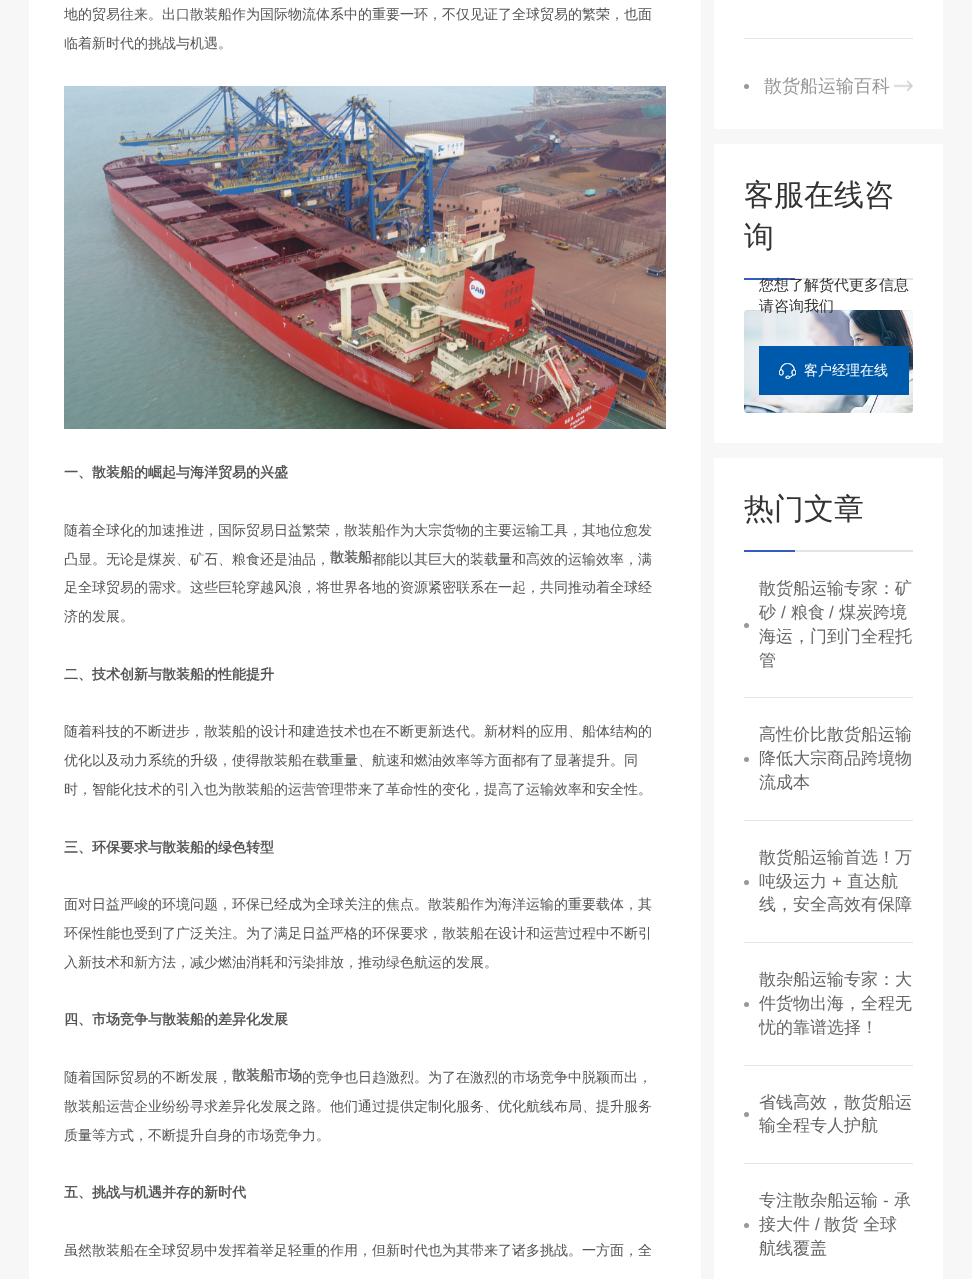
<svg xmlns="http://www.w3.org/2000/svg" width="972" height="1279">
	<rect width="100%" height="100%" fill="#F6F7F6" />
	<rect x="29" y="0" width="672" height="1279" fill="#FFFFFF" />
	<g font-family="WenQuanYi Zen Hei" font-size="14" font-weight="500" fill="#555555">
		<text x="64" y="19">地的贸易往来。出口散装船作为国际物流体系中的重要一环，不仅见证了全球贸易的繁荣，也面</text>
		<text x="64" y="48">临着新时代的挑战与机遇。</text>
	</g>
	<image x="64" y="86" width="602" height="343" href="assets/img1.png" />
	<text x="64" y="477" font-family="WenQuanYi Zen Hei" font-size="14" font-weight="700" fill="#555555">一、散装船的崛起与海洋贸易的兴盛</text>
	<g font-family="WenQuanYi Zen Hei" font-size="14" font-weight="500" fill="#555555">
		<text x="64" y="535">随着全球化的加速推进，国际贸易日益繁荣，散装船作为大宗货物的主要运输工具，其地位愈发</text>
		<text x="64" y="564">凸显。无论是煤炭、矿石、粮食还是油品，</text>
	</g>
	<text x="330" y="562" font-family="WenQuanYi Zen Hei" font-size="14" font-weight="700" fill="#666666">散装船</text>
	<g font-family="WenQuanYi Zen Hei" font-size="14" font-weight="500" fill="#555555">
		<text x="372" y="564">都能以其巨大的装载量和高效的运输效率，满</text>
		<text x="64" y="592">足全球贸易的需求。这些巨轮穿越风浪，将世界各地的资源紧密联系在一起，共同推动着全球经</text>
		<text x="64" y="621">济的发展。</text>
	</g>
	<text x="64" y="679" font-family="WenQuanYi Zen Hei" font-size="14" font-weight="700" fill="#555555">二、技术创新与散装船的性能提升</text>
	<g font-family="WenQuanYi Zen Hei" font-size="14" font-weight="500" fill="#555555">
		<text x="64" y="736">随着科技的不断进步，散装船的设计和建造技术也在不断更新迭代。新材料的应用、船体结构的</text>
		<text x="64" y="765">优化以及动力系统的升级，使得散装船在载重量、航速和燃油效率等方面都有了显著提升。同</text>
		<text x="64" y="794">时，智能化技术的引入也为散装船的运营管理带来了革命性的变化，提高了运输效率和安全性。</text>
	</g>
	<text x="64" y="852" font-family="WenQuanYi Zen Hei" font-size="14" font-weight="700" fill="#555555">三、环保要求与散装船的绿色转型</text>
	<g font-family="WenQuanYi Zen Hei" font-size="14" font-weight="500" fill="#555555">
		<text x="64" y="909">面对日益严峻的环境问题，环保已经成为全球关注的焦点。散装船作为海洋运输的重要载体，其</text>
		<text x="64" y="938">环保性能也受到了广泛关注。为了满足日益严格的环保要求，散装船在设计和运营过程中不断引</text>
		<text x="64" y="967">入新技术和新方法，减少燃油消耗和污染排放，推动绿色航运的发展。</text>
	</g>
	<text x="64" y="1024" font-family="WenQuanYi Zen Hei" font-size="14" font-weight="700" fill="#555555">四、市场竞争与散装船的差异化发展</text>
	<text x="64" y="1082" font-family="WenQuanYi Zen Hei" font-size="14" font-weight="500" fill="#555555">随着国际贸易的不断发展，</text>
	<text x="232" y="1080" font-family="WenQuanYi Zen Hei" font-size="14" font-weight="700" fill="#666666">散装船市场</text>
	<g font-family="WenQuanYi Zen Hei" font-size="14" font-weight="500" fill="#555555">
		<text x="302" y="1082">的竞争也日趋激烈。为了在激烈的市场竞争中脱颖而出，</text>
		<text x="64" y="1111">散装船运营企业纷纷寻求差异化发展之路。他们通过提供定制化服务、优化航线布局、提升服务</text>
		<text x="64" y="1140">质量等方式，不断提升自身的市场竞争力。</text>
	</g>
	<text x="64" y="1197" font-family="WenQuanYi Zen Hei" font-size="14" font-weight="700" fill="#555555">五、挑战与机遇并存的新时代</text>
	<text x="64" y="1255" font-family="WenQuanYi Zen Hei" font-size="14" font-weight="500" fill="#555555">虽然散装船在全球贸易中发挥着举足轻重的作用，但新时代也为其带来了诸多挑战。一方面，全</text>
	<rect x="714" y="0" width="229" height="129" fill="#FFFFFF" />
	<rect x="744" y="38" width="169" height="1" fill="#E4E4E4" />
	<rect x="907" y="0" width="1" height="1" fill="#F1F1F1" />
	<circle cx="746.5" cy="86.5" r="2.5" fill="#999899" />
	<text x="764" y="92" font-family="WenQuanYi Zen Hei" font-size="18" font-weight="500" fill="#999899">散货船运输百科</text>
	<image x="894" y="80" width="19" height="12" href="assets/img2.png" />
	<rect x="714" y="144" width="229" height="299" fill="#FFFFFF" />
	<g font-family="WenQuanYi Zen Hei" font-size="30" font-weight="500" fill="#333333">
		<text x="744" y="205">客服在线咨</text>
		<text x="744" y="247">询</text>
	</g>
	<rect x="795" y="278" width="118" height="2" fill="#E4E4E4" />
	<rect x="744" y="278" width="51" height="2" fill="#335EBD" />
	<text x="759" y="290" font-family="WenQuanYi Zen Hei" font-size="15" font-weight="500" fill="#333333">您想了解货代更多信息</text>
	<image x="744" y="310" width="169" height="103" href="assets/img4.png" />
	<text x="759" y="311" font-family="WenQuanYi Zen Hei" font-size="15" font-weight="500" fill="#333333">请咨询我们</text>
	<rect x="759" y="346" width="150" height="49" fill="#005AAB" />
	<image x="779" y="363" width="17" height="16" href="assets/img3.png" />
	<text x="804" y="375" font-family="WenQuanYi Zen Hei" font-size="14" font-weight="500" fill="#FFFFFF">客户经理在线</text>
	<rect x="714" y="458" width="229" height="821" fill="#FFFFFF" />
	<text x="744" y="519" font-family="WenQuanYi Zen Hei" font-size="30" font-weight="500" fill="#333333">热门文章</text>
	<rect x="795" y="550" width="118" height="2" fill="#E4E4E4" />
	<rect x="744" y="550" width="51" height="2" fill="#335EBD" />
	<rect x="744" y="697" width="169" height="1" fill="#E4E4E4" />
	<g font-family="WenQuanYi Zen Hei" font-size="17" font-weight="500" fill="#666666">
		<text x="759" y="594">散货船运输专家：矿</text>
		<text x="759" y="618">砂</text>
	</g>
	<text x="781" y="618" font-family="Liberation Sans" font-size="17" fill="#666666">/</text>
	<text x="791" y="618" font-family="WenQuanYi Zen Hei" font-size="17" font-weight="500" fill="#666666">粮食</text>
	<text x="829" y="618" font-family="Liberation Sans" font-size="17" fill="#666666">/</text>
	<text x="839" y="618" font-family="WenQuanYi Zen Hei" font-size="17" font-weight="500" fill="#666666">煤炭跨境</text>
	<circle cx="746.5" cy="625.5" r="2.5" fill="#999899" />
	<g font-family="WenQuanYi Zen Hei" font-size="17" font-weight="500" fill="#666666">
		<text x="759" y="642">海运，门到门全程托</text>
		<text x="759" y="666">管</text>
	</g>
	<rect x="744" y="820" width="169" height="1" fill="#E4E4E4" />
	<text x="759" y="740" font-family="WenQuanYi Zen Hei" font-size="17" font-weight="500" fill="#666666">高性价比散货船运输</text>
	<circle cx="746.5" cy="759.5" r="2.5" fill="#999899" />
	<g font-family="WenQuanYi Zen Hei" font-size="17" font-weight="500" fill="#666666">
		<text x="759" y="764">降低大宗商品跨境物</text>
		<text x="759" y="788">流成本</text>
	</g>
	<rect x="744" y="942" width="169" height="1" fill="#E4E4E4" />
	<text x="759" y="863" font-family="WenQuanYi Zen Hei" font-size="17" font-weight="500" fill="#666666">散货船运输首选！万</text>
	<circle cx="746.5" cy="882.5" r="2.5" fill="#999899" />
	<text x="759" y="887" font-family="WenQuanYi Zen Hei" font-size="17" font-weight="500" fill="#666666">吨级运力</text>
	<text x="832" y="887" font-family="Liberation Sans" font-size="17" fill="#666666">+</text>
	<g font-family="WenQuanYi Zen Hei" font-size="17" font-weight="500" fill="#666666">
		<text x="847" y="887">直达航</text>
		<text x="759" y="910">线，安全高效有保障</text>
	</g>
	<rect x="744" y="1065" width="169" height="1" fill="#E4E4E4" />
	<text x="759" y="985" font-family="WenQuanYi Zen Hei" font-size="17" font-weight="500" fill="#666666">散杂船运输专家：大</text>
	<circle cx="746.5" cy="1004.5" r="2.5" fill="#999899" />
	<g font-family="WenQuanYi Zen Hei" font-size="17" font-weight="500" fill="#666666">
		<text x="759" y="1009">件货物出海，全程无</text>
		<text x="759" y="1033">忧的靠谱选择！</text>
	</g>
	<rect x="744" y="1163" width="169" height="1" fill="#E4E4E4" />
	<text x="759" y="1108" font-family="WenQuanYi Zen Hei" font-size="17" font-weight="500" fill="#666666">省钱高效，散货船运</text>
	<circle cx="746.5" cy="1114.5" r="2.5" fill="#999899" />
	<g font-family="WenQuanYi Zen Hei" font-size="17" font-weight="500" fill="#666666">
		<text x="759" y="1131">输全程专人护航</text>
		<text x="759" y="1206">专注散杂船运输</text>
	</g>
	<text x="883" y="1206" font-family="Liberation Sans" font-size="17" fill="#666666">-</text>
	<text x="894" y="1206" font-family="WenQuanYi Zen Hei" font-size="17" font-weight="500" fill="#666666">承</text>
	<circle cx="746.5" cy="1225.5" r="2.5" fill="#999899" />
	<text x="759" y="1230" font-family="WenQuanYi Zen Hei" font-size="17" font-weight="500" fill="#666666">接大件</text>
	<text x="815" y="1230" font-family="Liberation Sans" font-size="17" fill="#666666">/</text>
	<g font-family="WenQuanYi Zen Hei" font-size="17" font-weight="500" fill="#666666">
		<text x="824" y="1230">散货 全球</text>
		<text x="759" y="1254">航线覆盖</text>
	</g>
</svg>
